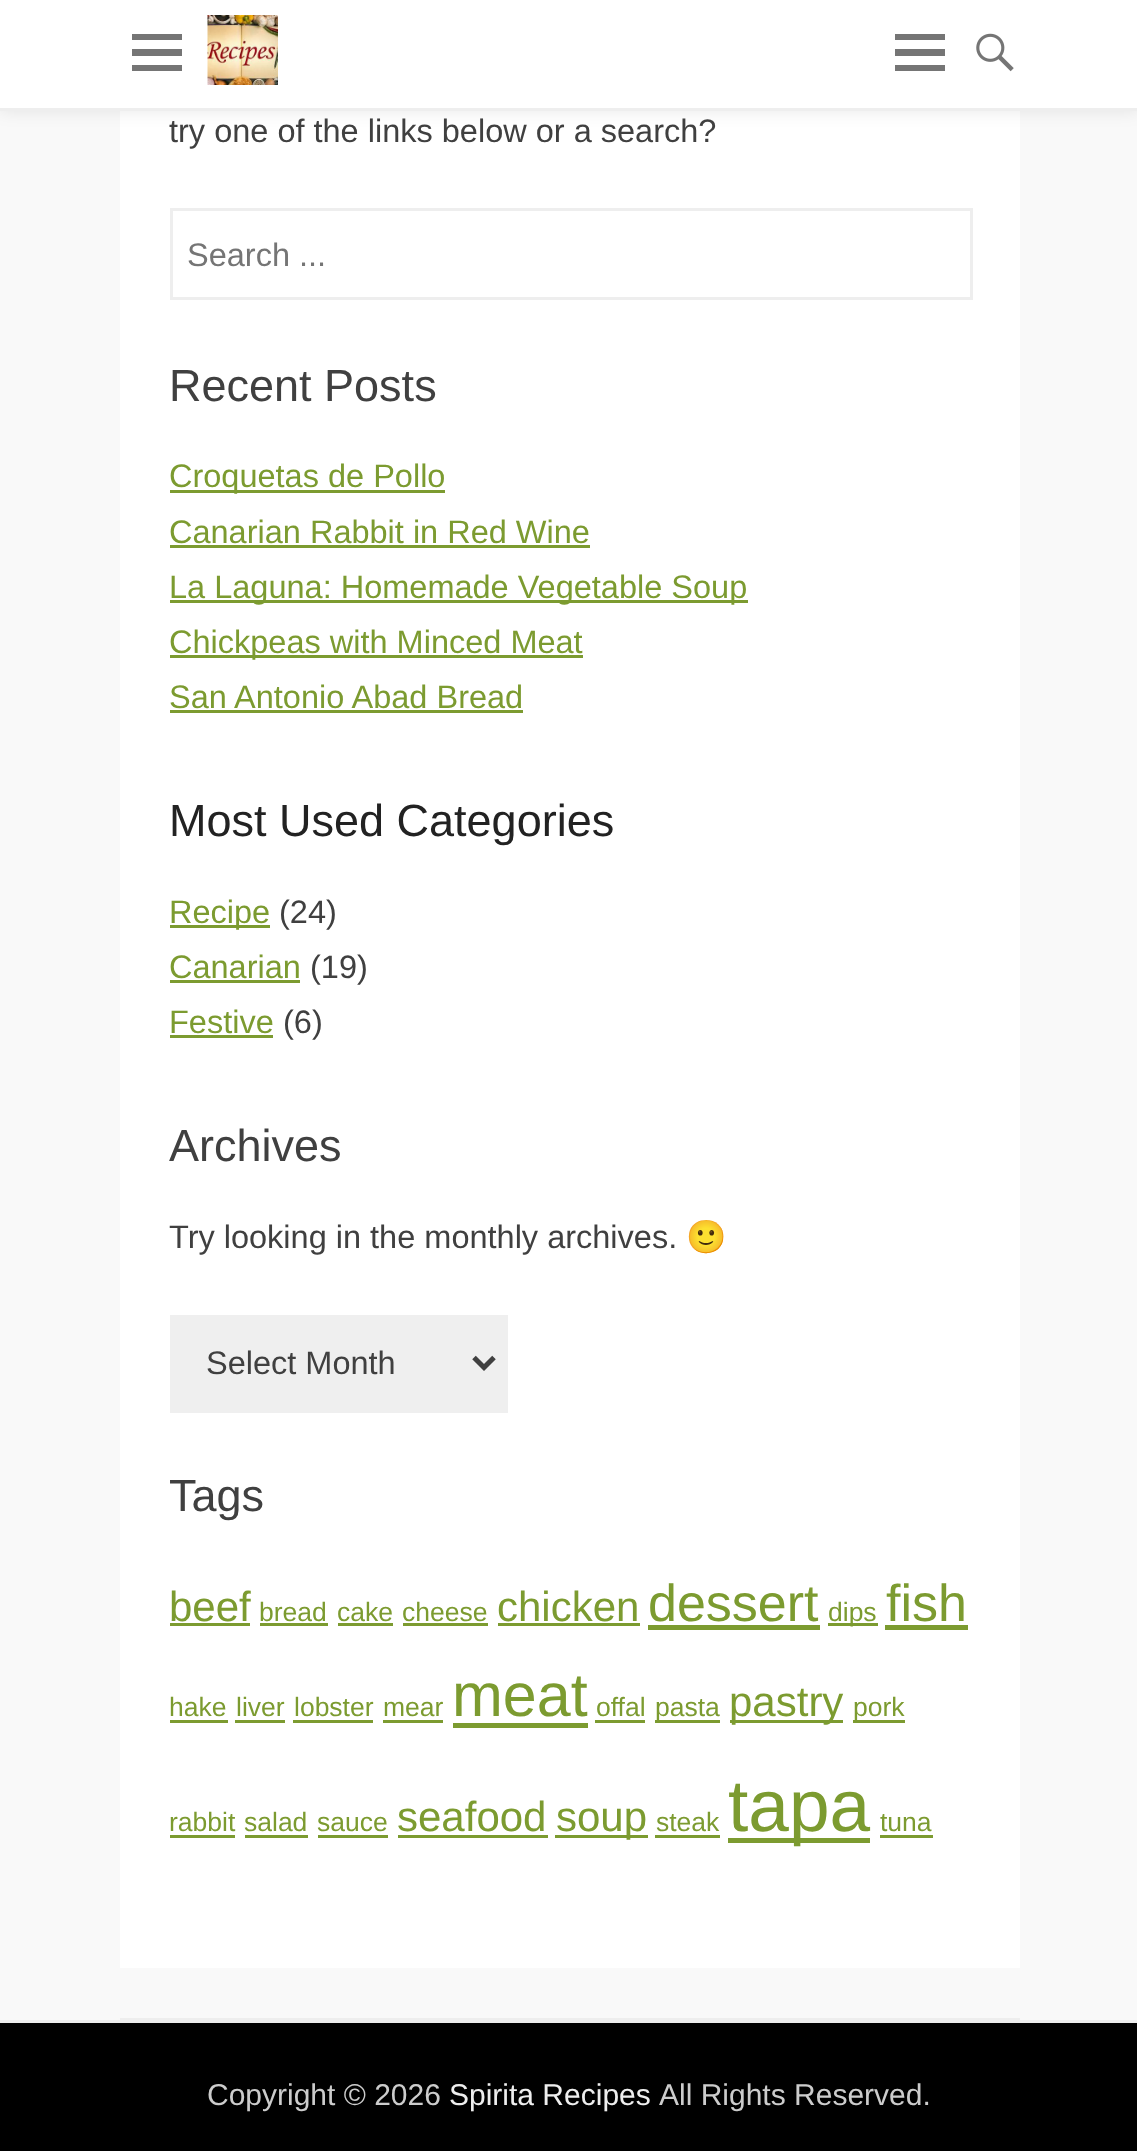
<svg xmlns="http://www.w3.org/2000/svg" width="1137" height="2151">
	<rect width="100%" height="100%" fill="#F9F9F9" />
	<rect x="120" y="111" width="900" height="1857" fill="#FFFFFF" />
	<rect x="0" y="0" width="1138" height="110" fill="#000000" fill-opacity="0.1" filter="blur(9px)" />
	<rect x="0" y="0" width="1137" height="108" fill="#FFFFFF" />
	<rect x="0" y="108" width="1137" height="3" fill="#EEEEEE" />
	<path d="M132 71V65H182V71ZM132 34H182V40H132ZM132 56V49H182V56Z" fill="#757575" />
	<image x="207" y="15" width="71" height="70" href="assets/img1.png" />
	<path d="M895 71V65H945V71ZM895 34H945V40H895ZM895 56V49H945V56Z" fill="#757575" />
	<image x="976" y="33" width="38" height="39" href="assets/img2.png" />
	<rect x="120" y="2018" width="900" height="2" fill="#EEEEEE" />
	<text x="169" y="142" font-family="Liberation Sans" font-size="32.5" fill="#404040">try one of the links below or a search?</text>
	<rect x="171.5" y="209.5" width="800" height="89" fill="none" stroke="#EEEEEE" stroke-width="3" />
	<text x="187" y="266" font-family="Liberation Sans" font-size="32.5" fill="#757575">Search ...</text>
	<text x="169" y="401" font-family="Liberation Sans" font-size="45" fill="#404040">Recent Posts</text>
	<rect x="170" y="490" width="275" height="3" fill="#7C9B30" />
	<g font-family="Liberation Sans" font-size="32.5" fill="#7C9B30">
		<text x="169" y="487">Croquetas de Pollo</text>
		<text x="169" y="543">Canarian Rabbit in Red Wine</text>
	</g>
	<rect x="170" y="545" width="420" height="3" fill="#7C9B30" />
	<rect x="170" y="600" width="578" height="3" fill="#7C9B30" />
	<text x="169" y="598" font-family="Liberation Sans" font-size="32.5" fill="#7C9B30">La Laguna: Homemade Vegetable Soup</text>
	<rect x="170" y="655" width="413" height="3" fill="#7C9B30" />
	<g font-family="Liberation Sans" font-size="32.5" fill="#7C9B30">
		<text x="169" y="653">Chickpeas with Minced Meat</text>
		<text x="169" y="708">San Antonio Abad Bread</text>
	</g>
	<rect x="170" y="710" width="353" height="3" fill="#7C9B30" />
	<text x="169" y="836" font-family="Liberation Sans" font-size="45" fill="#222222">Most Used Categories</text>
	<rect x="170" y="925" width="100" height="3" fill="#7C9B30" />
	<text x="169" y="923" font-family="Liberation Sans" font-size="32.5" fill="#7C9B30">Recipe</text>
	<text x="279" y="923" font-family="Liberation Sans" font-size="32.5" fill="#404040">(24)</text>
	<text x="169" y="978" font-family="Liberation Sans" font-size="32.5" fill="#7C9B30">Canarian</text>
	<rect x="170" y="980" width="130" height="3" fill="#7C9B30" />
	<text x="310" y="978" font-family="Liberation Sans" font-size="32.5" fill="#404040">(19)</text>
	<text x="169" y="1033" font-family="Liberation Sans" font-size="32.5" fill="#7C9B30">Festive</text>
	<rect x="170" y="1035" width="103" height="3" fill="#7C9B30" />
	<text x="283" y="1033" font-family="Liberation Sans" font-size="32.5" fill="#404040">(6)</text>
	<text x="169" y="1161" font-family="Liberation Sans" font-size="45" fill="#404040">Archives</text>
	<text x="169" y="1248" font-family="Liberation Sans" font-size="32.5" fill="#404040">Try looking in the monthly archives.</text>
	<text x="686" y="1248" font-family="Noto Color Emoji" font-size="32.5" fill="#404040">🙂</text>
	<rect x="170" y="1315" width="338" height="98" fill="#EFEFEF" />
	<path d="M474 1357.5L484 1367.5L494 1357.5" fill="none" stroke="#404040" stroke-width="5" />
	<text x="206" y="1374" font-family="Liberation Sans" font-size="32.5" fill="#404040">Select Month</text>
	<text x="169" y="1511" font-family="Liberation Sans" font-size="45" fill="#404040">Tags</text>
	<text x="169" y="1621" font-family="Liberation Sans" font-size="42" fill="#7C9B30">beef</text>
	<rect x="170" y="1623" width="80" height="3" fill="#7C9B30" />
	<text x="259" y="1621" font-family="Liberation Sans" font-size="26.5" fill="#7C9B30">bread</text>
	<rect x="260" y="1623" width="68" height="3" fill="#7C9B30" />
	<text x="337" y="1621" font-family="Liberation Sans" font-size="26.5" fill="#7C9B30">cake</text>
	<rect x="338" y="1623" width="55" height="3" fill="#7C9B30" />
	<text x="402" y="1621" font-family="Liberation Sans" font-size="26.5" fill="#7C9B30">cheese</text>
	<rect x="403" y="1623" width="85" height="3" fill="#7C9B30" />
	<text x="497" y="1621" font-family="Liberation Sans" font-size="42" fill="#7C9B30">chicken</text>
	<rect x="498" y="1623" width="142" height="3" fill="#7C9B30" />
	<text x="648" y="1621" font-family="Liberation Sans" font-size="52" fill="#7C9B30">dessert</text>
	<rect x="648" y="1625" width="172" height="5" fill="#7C9B30" />
	<rect x="828" y="1623" width="50" height="3" fill="#7C9B30" />
	<text x="828" y="1621" font-family="Liberation Sans" font-size="26.5" fill="#7C9B30">dips</text>
	<text x="886" y="1621" font-family="Liberation Sans" font-size="52" fill="#7C9B30">fish</text>
	<rect x="885" y="1625" width="83" height="5" fill="#7C9B30" />
	<text x="169" y="1716" font-family="Liberation Sans" font-size="26.5" fill="#7C9B30">hake</text>
	<rect x="170" y="1720" width="58" height="3" fill="#7C9B30" />
	<text x="236" y="1716" font-family="Liberation Sans" font-size="26.5" fill="#7C9B30">liver</text>
	<rect x="235" y="1720" width="50" height="3" fill="#7C9B30" />
	<text x="294" y="1716" font-family="Liberation Sans" font-size="26.5" fill="#7C9B30">lobster</text>
	<rect x="293" y="1720" width="80" height="3" fill="#7C9B30" />
	<text x="383" y="1716" font-family="Liberation Sans" font-size="26.5" fill="#7C9B30">mear</text>
	<rect x="383" y="1720" width="60" height="3" fill="#7C9B30" />
	<text x="452" y="1716" font-family="Liberation Sans" font-size="61" fill="#7C9B30">meat</text>
	<rect x="453" y="1723" width="135" height="5" fill="#7C9B30" />
	<text x="596" y="1716" font-family="Liberation Sans" font-size="26.5" fill="#7C9B30">offal</text>
	<rect x="595" y="1720" width="50" height="3" fill="#7C9B30" />
	<rect x="655" y="1720" width="65" height="3" fill="#7C9B30" />
	<text x="655" y="1716" font-family="Liberation Sans" font-size="26.5" fill="#7C9B30">pasta</text>
	<rect x="730" y="1720" width="113" height="3" fill="#7C9B30" />
	<text x="729" y="1716" font-family="Liberation Sans" font-size="42" fill="#7C9B30">pastry</text>
	<rect x="853" y="1720" width="52" height="3" fill="#7C9B30" />
	<g font-family="Liberation Sans" font-size="26.5" fill="#7C9B30">
		<text x="853" y="1716">pork</text>
		<text x="169" y="1831">rabbit</text>
	</g>
	<rect x="170" y="1835" width="65" height="3" fill="#7C9B30" />
	<text x="244" y="1831" font-family="Liberation Sans" font-size="26.5" fill="#7C9B30">salad</text>
	<rect x="245" y="1835" width="63" height="3" fill="#7C9B30" />
	<text x="317" y="1831" font-family="Liberation Sans" font-size="26.5" fill="#7C9B30">sauce</text>
	<rect x="318" y="1835" width="70" height="3" fill="#7C9B30" />
	<text x="397" y="1831" font-family="Liberation Sans" font-size="42" fill="#7C9B30">seafood</text>
	<rect x="398" y="1835" width="150" height="3" fill="#7C9B30" />
	<rect x="555" y="1835" width="93" height="3" fill="#7C9B30" />
	<text x="556" y="1831" font-family="Liberation Sans" font-size="42" fill="#7C9B30">soup</text>
	<text x="656" y="1831" font-family="Liberation Sans" font-size="26.5" fill="#7C9B30">steak</text>
	<rect x="655" y="1835" width="65" height="3" fill="#7C9B30" />
	<rect x="728" y="1838" width="142" height="5" fill="#7C9B30" />
	<text x="728" y="1831" font-family="Liberation Sans" font-size="73" fill="#7C9B30">tapa</text>
	<text x="880" y="1831" font-family="Liberation Sans" font-size="26.5" fill="#7C9B30">tuna</text>
	<rect x="880" y="1835" width="53" height="3" fill="#7C9B30" />
	<rect x="0" y="2020" width="1137" height="3" fill="#EEEEEE" />
	<rect x="0" y="2023" width="1137" height="128" fill="#000000" />
	<text x="207" y="2105" font-family="Liberation Sans" font-size="30" fill="#CCCCCC">Copyright © 2026</text>
	<text x="449" y="2105" font-family="Liberation Sans" font-size="30" fill="#EEEEEE">Spirita Recipes</text>
	<text x="659" y="2105" font-family="Liberation Sans" font-size="30" fill="#CCCCCC">All Rights Reserved.</text>
</svg>
